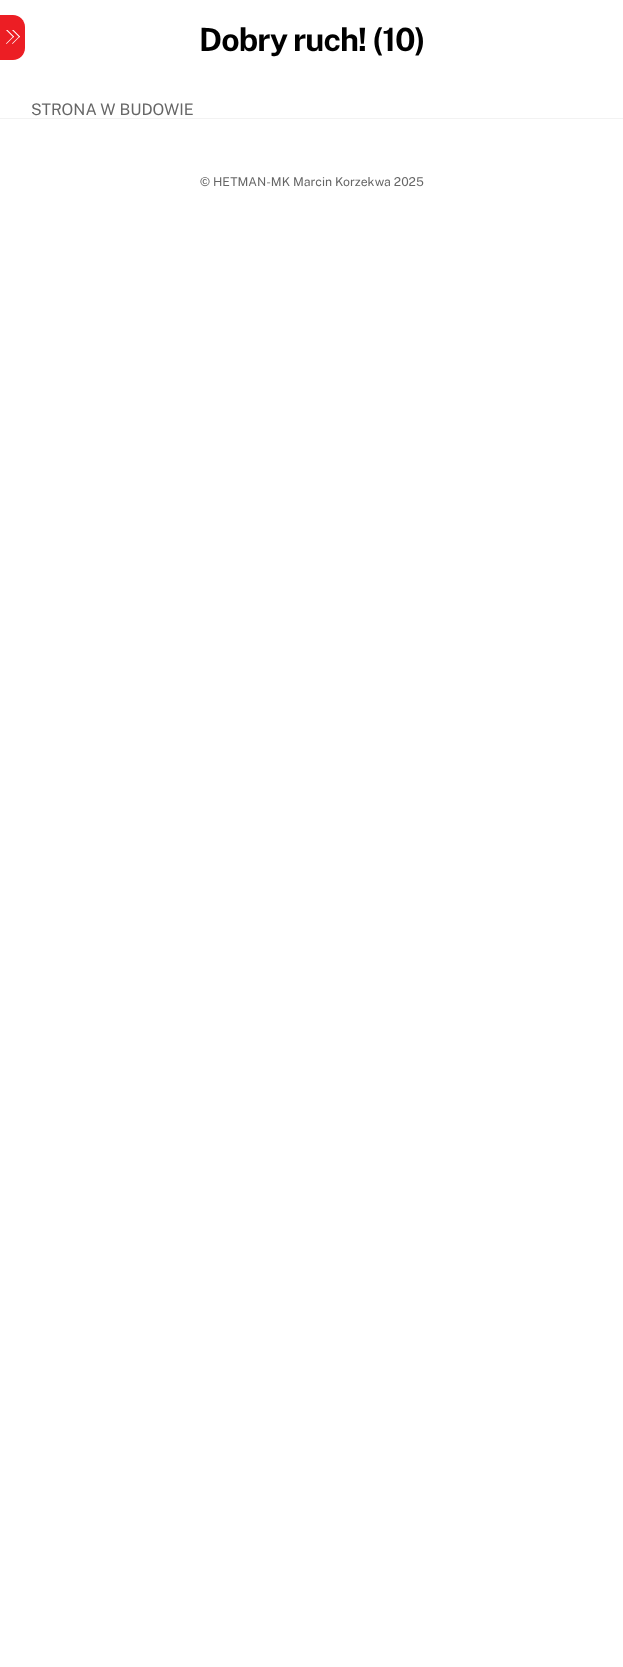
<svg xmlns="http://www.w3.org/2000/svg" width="623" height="1667">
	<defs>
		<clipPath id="clip1"><rect x="2" y="30" width="22" height="18" /></clipPath>
	</defs>
	<rect width="100%" height="100%" fill="#FFFFFF" />
	<path d="M0 15H13C19.5 15 25 20.5 25 27V48C25 54.5 19.5 60 13 60H0Z" fill="#EC1E24" />
	<g clip-path="url(#clip1)">
		<path d="M10 26.5L20 36.5L19.5 37.5L9.5 27.5Z" fill="#FFFFFF" />
	</g>
	<path d="M19.5 36L20 36.5L12.5 44L12 43.5Z" fill="#FFFFFF" />
	<g clip-path="url(#clip1)">
		<path d="M4 26.5L14 36.5L13.5 37.5L3.5 27.5Z" fill="#FFFFFF" />
	</g>
	<path d="M13.5 36L14 36.5L6.5 44L6 43.5Z" fill="#FFFFFF" />
	<text x="199" y="51" font-family="Public Sans" font-size="32" font-weight="700" letter-spacing="-0.9" fill="#000000">Dobry ruch! (10)</text>
	<text x="31" y="115" font-family="Public Sans" font-size="16" fill="#666666">STRONA W BUDOWIE</text>
	<rect x="0" y="118" width="623" height="1" fill="#F2F2F2" />
	<text x="200" y="186" font-family="Public Sans" font-size="12.25" fill="#666666">© HETMAN-MK Marcin Korzekwa 2025</text>
</svg>
